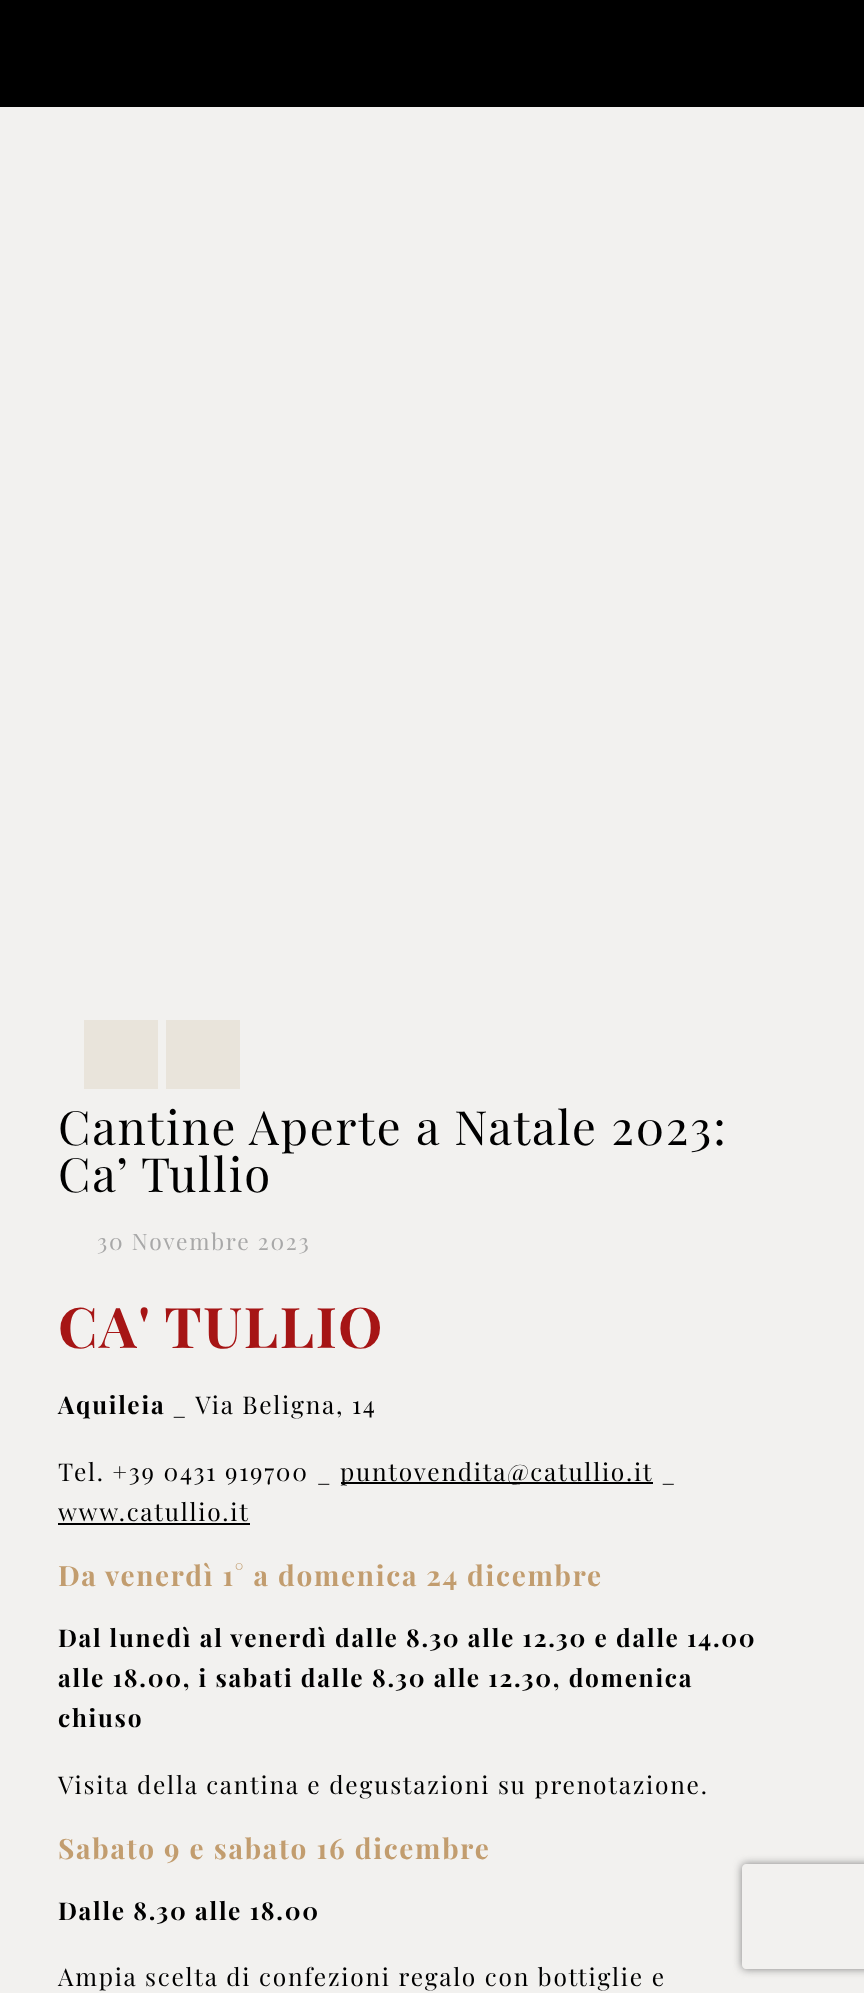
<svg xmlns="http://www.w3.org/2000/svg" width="864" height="1993">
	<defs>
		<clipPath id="clip1"><path d="M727 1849H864V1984H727ZM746 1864H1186C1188 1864 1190 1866 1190 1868V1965C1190 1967 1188 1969 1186 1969H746C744 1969 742 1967 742 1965V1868C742 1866 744 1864 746 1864Z" clip-rule="evenodd" /></clipPath>
	</defs>
	<rect width="100%" height="100%" fill="#F2F1EF" />
	<rect x="0" y="0" width="864" height="107" fill="#000000" />
	<rect x="84" y="1020" width="74" height="69" fill="#E9E4DB" />
	<rect x="166" y="1020" width="74" height="69" fill="#E9E4DB" />
	<g font-family="Playfair Display" font-size="47.25" letter-spacing="1.75" fill="#000000">
		<text x="58" y="1145">Cantine Aperte a Natale 2023:</text>
		<text x="58" y="1192">Ca’ Tullio</text>
	</g>
	<text x="97" y="1250" font-family="Playfair Display" font-size="22.75" letter-spacing="1.75" fill="#A8A8A8">30 Novembre 2023</text>
	<text x="58" y="1348" font-family="Playfair Display" font-size="56" font-weight="700" letter-spacing="1.75" fill="#A61515">CA' TULLIO</text>
	<text x="58" y="1414" font-family="Playfair Display" font-size="24.5" font-weight="700" letter-spacing="1.75" fill="#000000">Aquileia</text>
	<g font-family="Playfair Display" font-size="24.5" letter-spacing="1.75" fill="#000000">
		<text x="172" y="1414">_ Via Beligna, 14</text>
		<text x="58" y="1481">Tel. +39 0431 919700 _</text>
	</g>
	<rect x="341" y="1482" width="312" height="2" fill="#000000" />
	<g font-family="Playfair Display" font-size="24.5" letter-spacing="1.75" fill="#000000">
		<text x="340" y="1481">puntovendita@catullio.it</text>
		<text x="661" y="1481">_</text>
		<text x="58" y="1521">www.catullio.it</text>
	</g>
	<rect x="58" y="1523" width="192" height="2" fill="#000000" />
	<text x="58" y="1586" font-family="Playfair Display" font-size="28" font-weight="700" letter-spacing="1.75" fill="#C29D6F">Da venerdì 1° a domenica 24 dicembre</text>
	<g font-family="Playfair Display" font-size="24.5" font-weight="700" letter-spacing="1.75" fill="#000000">
		<text x="58" y="1647">Dal lunedì al venerdì dalle 8.30 alle 12.30 e dalle 14.00</text>
		<text x="58" y="1687">alle 18.00, i sabati dalle 8.30 alle 12.30, domenica</text>
		<text x="58" y="1727">chiuso</text>
	</g>
	<text x="58" y="1794" font-family="Playfair Display" font-size="24.5" letter-spacing="1.75" fill="#000000">Visita della cantina e degustazioni su prenotazione.</text>
	<text x="58" y="1859" font-family="Playfair Display" font-size="28" font-weight="700" letter-spacing="1.75" fill="#C29D6F">Sabato 9 e sabato 16 dicembre</text>
	<text x="58" y="1920" font-family="Playfair Display" font-size="24.5" font-weight="700" letter-spacing="1.75" fill="#000000">Dalle 8.30 alle 18.00</text>
	<text x="58" y="1986" font-family="Playfair Display" font-size="24.5" letter-spacing="1.75" fill="#000000">Ampia scelta di confezioni regalo con bottiglie e</text>
	<g clip-path="url(#clip1)">
		<rect x="742" y="1864" width="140" height="105" rx="4" fill="#808080" filter="blur(4.5px)" />
	</g>
</svg>
